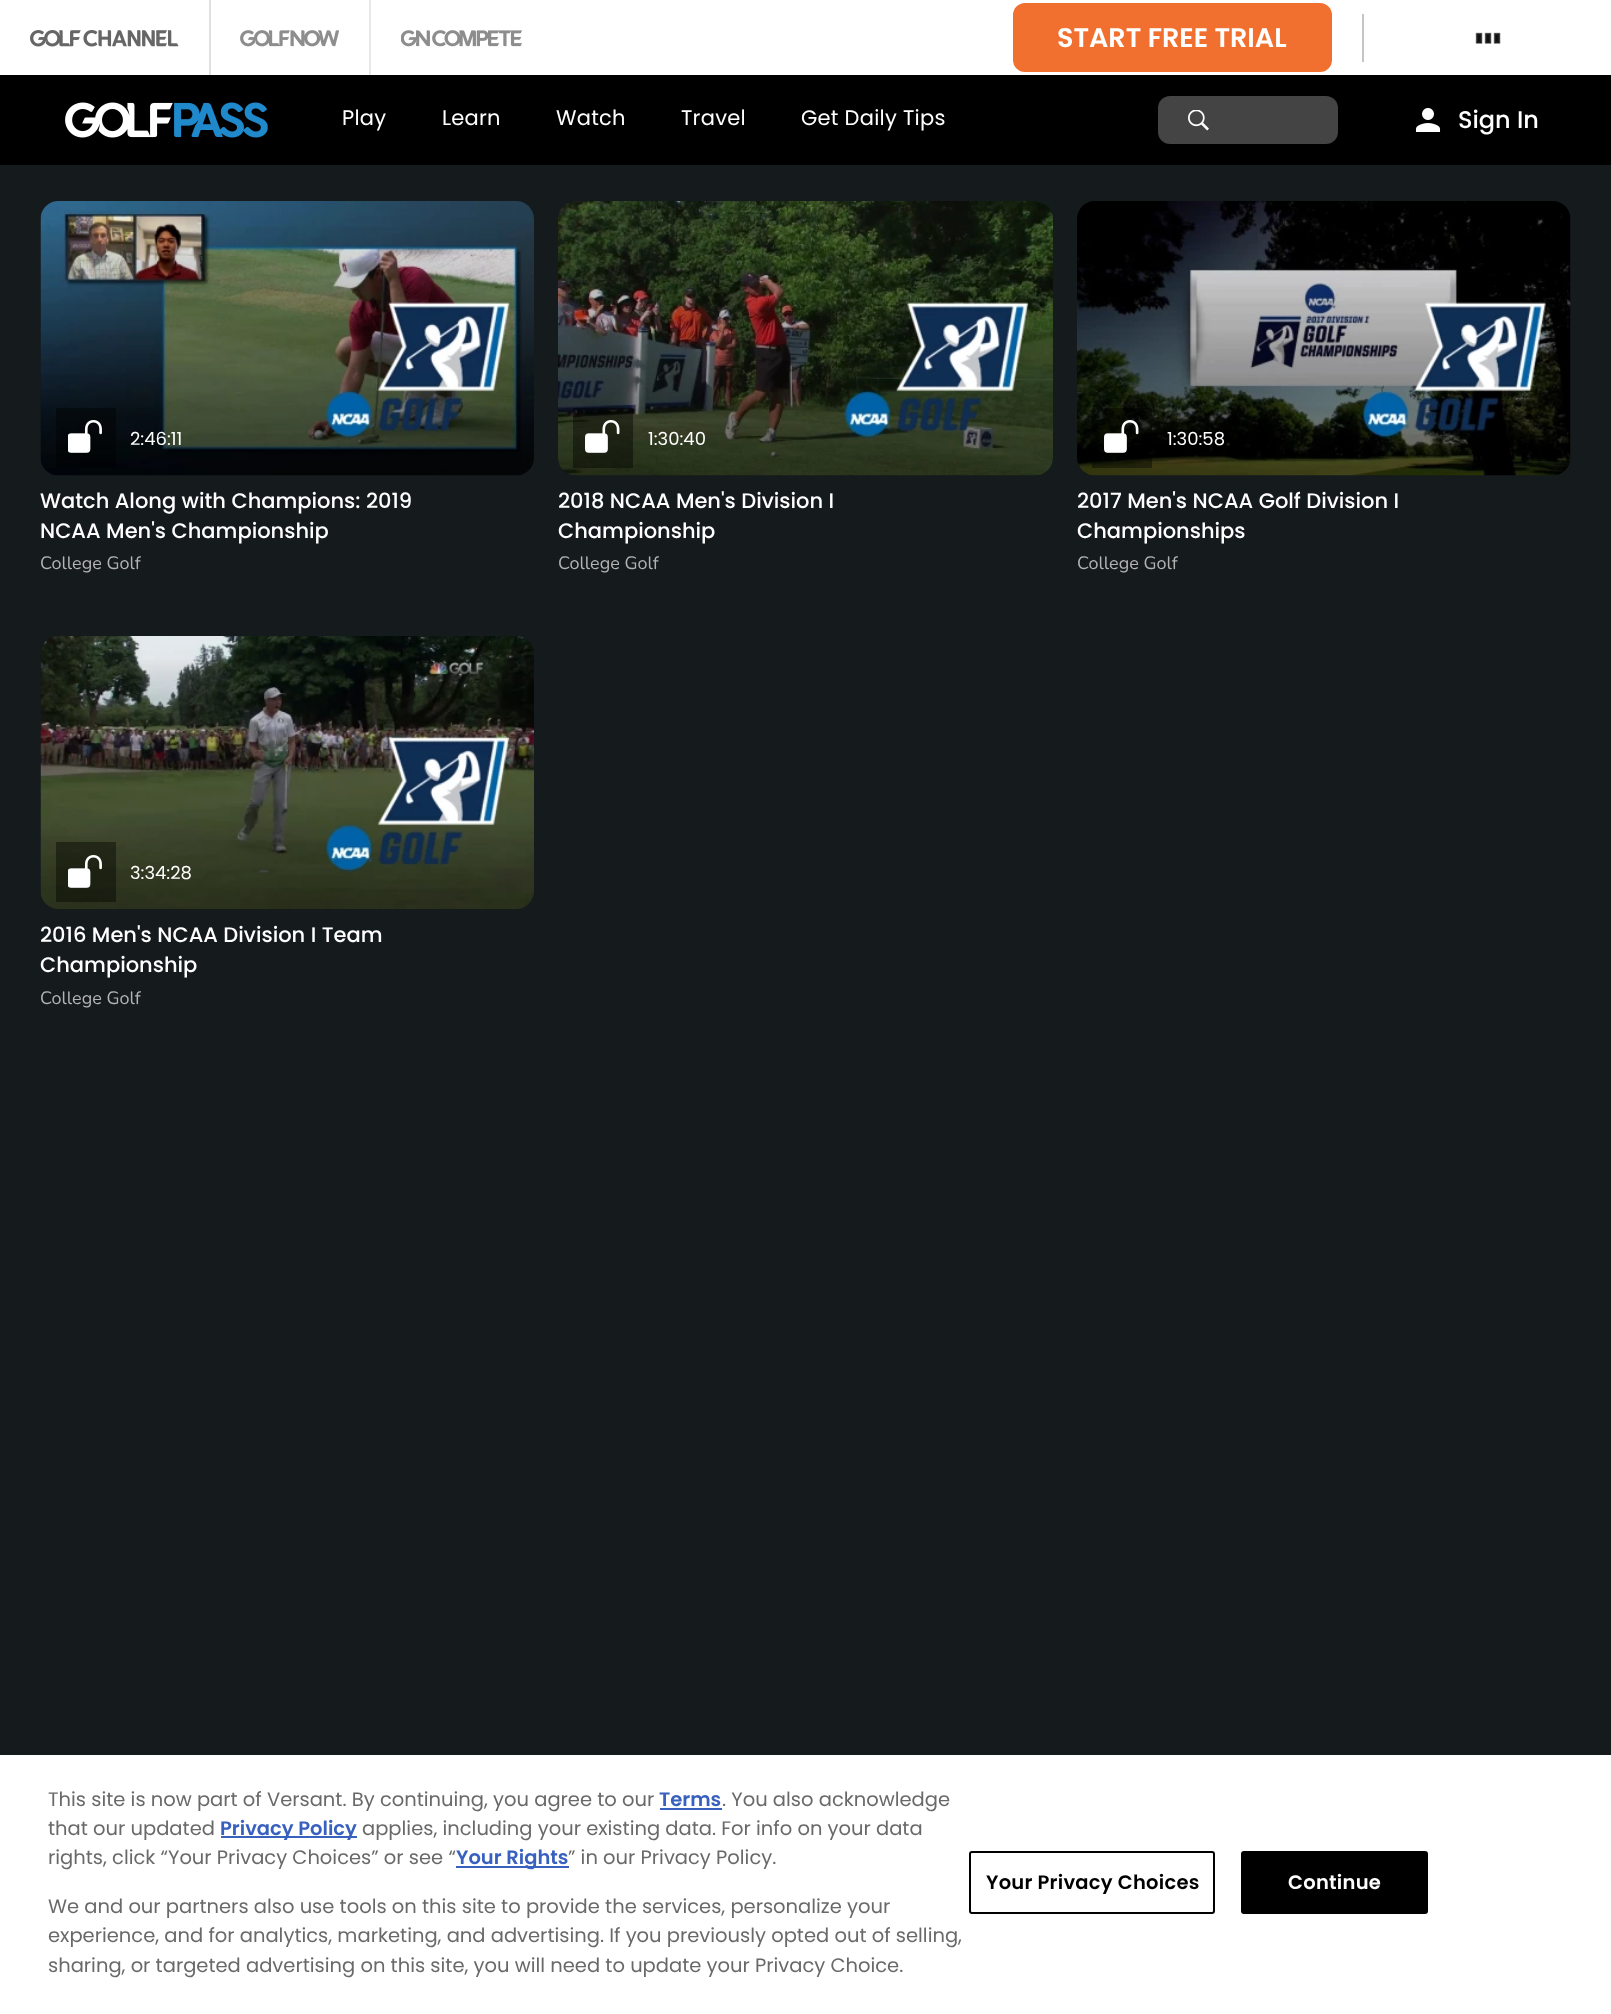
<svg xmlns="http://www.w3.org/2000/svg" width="1611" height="2014">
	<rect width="100%" height="100%" fill="#151A1D" />
	<rect x="0" y="0" width="1611" height="75" fill="#FFFFFF" />
	<rect x="209" y="0" width="2" height="75" fill="#E0E0E0" />
	<image x="30" y="30" width="149" height="17" href="assets/img1.png" />
	<rect x="369" y="0" width="2" height="75" fill="#E8E8E8" />
	<image x="240" y="30" width="99" height="17" href="assets/img2.png" />
	<image x="401" y="30" width="121" height="17" href="assets/img3.png" />
	<rect x="1014.5" y="4.5" width="316" height="66" rx="10.5" fill="#F1702F" stroke="#F1702F" stroke-width="3" />
	<text x="1057" y="47" font-family="Poppins" font-size="27" font-weight="600" fill="#FFFFFF">START FREE TRIAL</text>
	<rect x="1362" y="14" width="2" height="48" fill="#C5C5C5" />
	<image x="1475" y="32" width="26" height="12" href="assets/img4.png" />
	<rect x="0" y="75" width="1611" height="90" fill="#000000" />
	<image x="65" y="102" width="203" height="36" href="assets/img5.png" />
	<g font-family="Poppins" font-size="21" letter-spacing="0.25" fill="#FFFFFF">
		<text x="342" y="125">Play</text>
		<text x="442" y="125">Learn</text>
		<text x="556" y="125">Watch</text>
		<text x="681" y="125">Travel</text>
		<text x="801" y="125">Get Daily Tips</text>
	</g>
	<rect x="1158" y="96" width="180" height="48" rx="12" fill="#444444" />
	<image x="1188" y="110" width="21" height="21" href="assets/img6.png" />
	<image x="1415" y="108" width="26" height="24" href="assets/img7.png" />
	<text x="1458" y="128" font-family="Poppins" font-size="24" font-weight="500" fill="#FFFFFF">Sign In</text>
	<image x="40" y="201" width="494" height="275" href="assets/img8.png" />
	<rect x="56" y="408" width="60" height="60" fill="#000000" fill-opacity="0.4" />
	<image x="68" y="420" width="34" height="33" href="assets/img9.png" />
	<text x="130" y="445" font-family="Poppins" font-size="18" fill="#FFFFFF">2:46:11</text>
	<g font-family="Poppins" font-size="21" font-weight="500" fill="#FFFFFF">
		<text x="40" y="508">Watch Along with Champions: 2019</text>
		<text x="40" y="538">NCAA Men's Championship</text>
	</g>
	<text x="40" y="569" font-family="Nunito" font-size="18" fill="#B3B3B3">College Golf</text>
	<image x="558" y="201" width="495" height="275" href="assets/img10.png" />
	<rect x="573" y="408" width="60" height="60" fill="#000000" fill-opacity="0.4" />
	<image x="585" y="420" width="35" height="33" href="assets/img11.png" />
	<text x="648" y="445" font-family="Poppins" font-size="18" fill="#FFFFFF">1:30:40</text>
	<g font-family="Poppins" font-size="21" font-weight="500" fill="#FFFFFF">
		<text x="558" y="508">2018 NCAA Men's Division I</text>
		<text x="558" y="538">Championship</text>
	</g>
	<text x="558" y="569" font-family="Nunito" font-size="18" fill="#B3B3B3">College Golf</text>
	<image x="1077" y="201" width="494" height="275" href="assets/img12.png" />
	<rect x="1092" y="408" width="60" height="60" fill="#000000" fill-opacity="0.4" />
	<image x="1104" y="420" width="35" height="33" href="assets/img13.png" />
	<text x="1167" y="445" font-family="Poppins" font-size="18" fill="#FFFFFF">1:30:58</text>
	<g font-family="Poppins" font-size="21" font-weight="500" fill="#FFFFFF">
		<text x="1077" y="508">2017 Men's NCAA Golf Division I</text>
		<text x="1077" y="538">Championships</text>
	</g>
	<text x="1077" y="569" font-family="Nunito" font-size="18" fill="#B3B3B3">College Golf</text>
	<image x="40" y="636" width="494" height="273" href="assets/img14.png" />
	<rect x="56" y="842" width="60" height="60" fill="#000000" fill-opacity="0.4" />
	<image x="68" y="855" width="34" height="33" href="assets/img15.png" />
	<text x="130" y="879" font-family="Poppins" font-size="18" fill="#FFFFFF">3:34:28</text>
	<g font-family="Poppins" font-size="21" font-weight="500" fill="#FFFFFF">
		<text x="40" y="942">2016 Men's NCAA Division I Team</text>
		<text x="40" y="972">Championship</text>
	</g>
	<text x="40" y="1004" font-family="Nunito" font-size="18" fill="#B3B3B3">College Golf</text>
	<rect x="0" y="1755" width="1611" height="259" fill="#FFFFFF" />
	<text x="48" y="1806" font-family="Poppins" font-size="19.5" fill="#696969">This site is now part of Versant. By continuing, you agree to our</text>
	<text x="659" y="1806" font-family="Poppins" font-size="19.5" font-weight="600" fill="#3860BE">Terms</text>
	<rect x="660" y="1808" width="62" height="2" fill="#3860BE" />
	<g font-family="Poppins" font-size="19.5" fill="#696969">
		<text x="722" y="1806">. You also acknowledge</text>
		<text x="48" y="1835">that our updated</text>
	</g>
	<rect x="221" y="1836" width="136" height="2" fill="#3860BE" />
	<text x="220" y="1835" font-family="Poppins" font-size="19.5" font-weight="600" fill="#3860BE">Privacy Policy</text>
	<g font-family="Poppins" font-size="19.5" fill="#696969">
		<text x="362" y="1835">applies, including your existing data. For info on your data</text>
		<text x="48" y="1864">rights, click “Your Privacy Choices” or see “</text>
	</g>
	<rect x="456" y="1866" width="113" height="2" fill="#3860BE" />
	<text x="456" y="1864" font-family="Poppins" font-size="19.5" font-weight="600" fill="#3860BE">Your Rights</text>
	<g font-family="Poppins" font-size="19.5" fill="#696969">
		<text x="568" y="1864">” in our Privacy Policy.</text>
		<text x="48" y="1913">We and our partners also use tools on this site to provide the services, personalize your</text>
		<text x="48" y="1942">experience, and for analytics, marketing, and advertising. If you previously opted out of selling,</text>
		<text x="48" y="1972">sharing, or targeted advertising on this site, you will need to update your Privacy Choice.</text>
	</g>
	<rect x="970" y="1852" width="244" height="61" rx="2" fill="none" stroke="#000000" stroke-width="2" />
	<text x="986" y="1889" font-family="Poppins" font-size="19.5" font-weight="600" letter-spacing="0.25" fill="#000000">Your Privacy Choices</text>
	<rect x="1242" y="1852" width="185" height="61" rx="2" fill="#000000" stroke="#000000" stroke-width="2" />
	<text x="1288" y="1889" font-family="Poppins" font-size="19.5" font-weight="600" letter-spacing="0.25" fill="#FFFFFF">Continue</text>
</svg>
